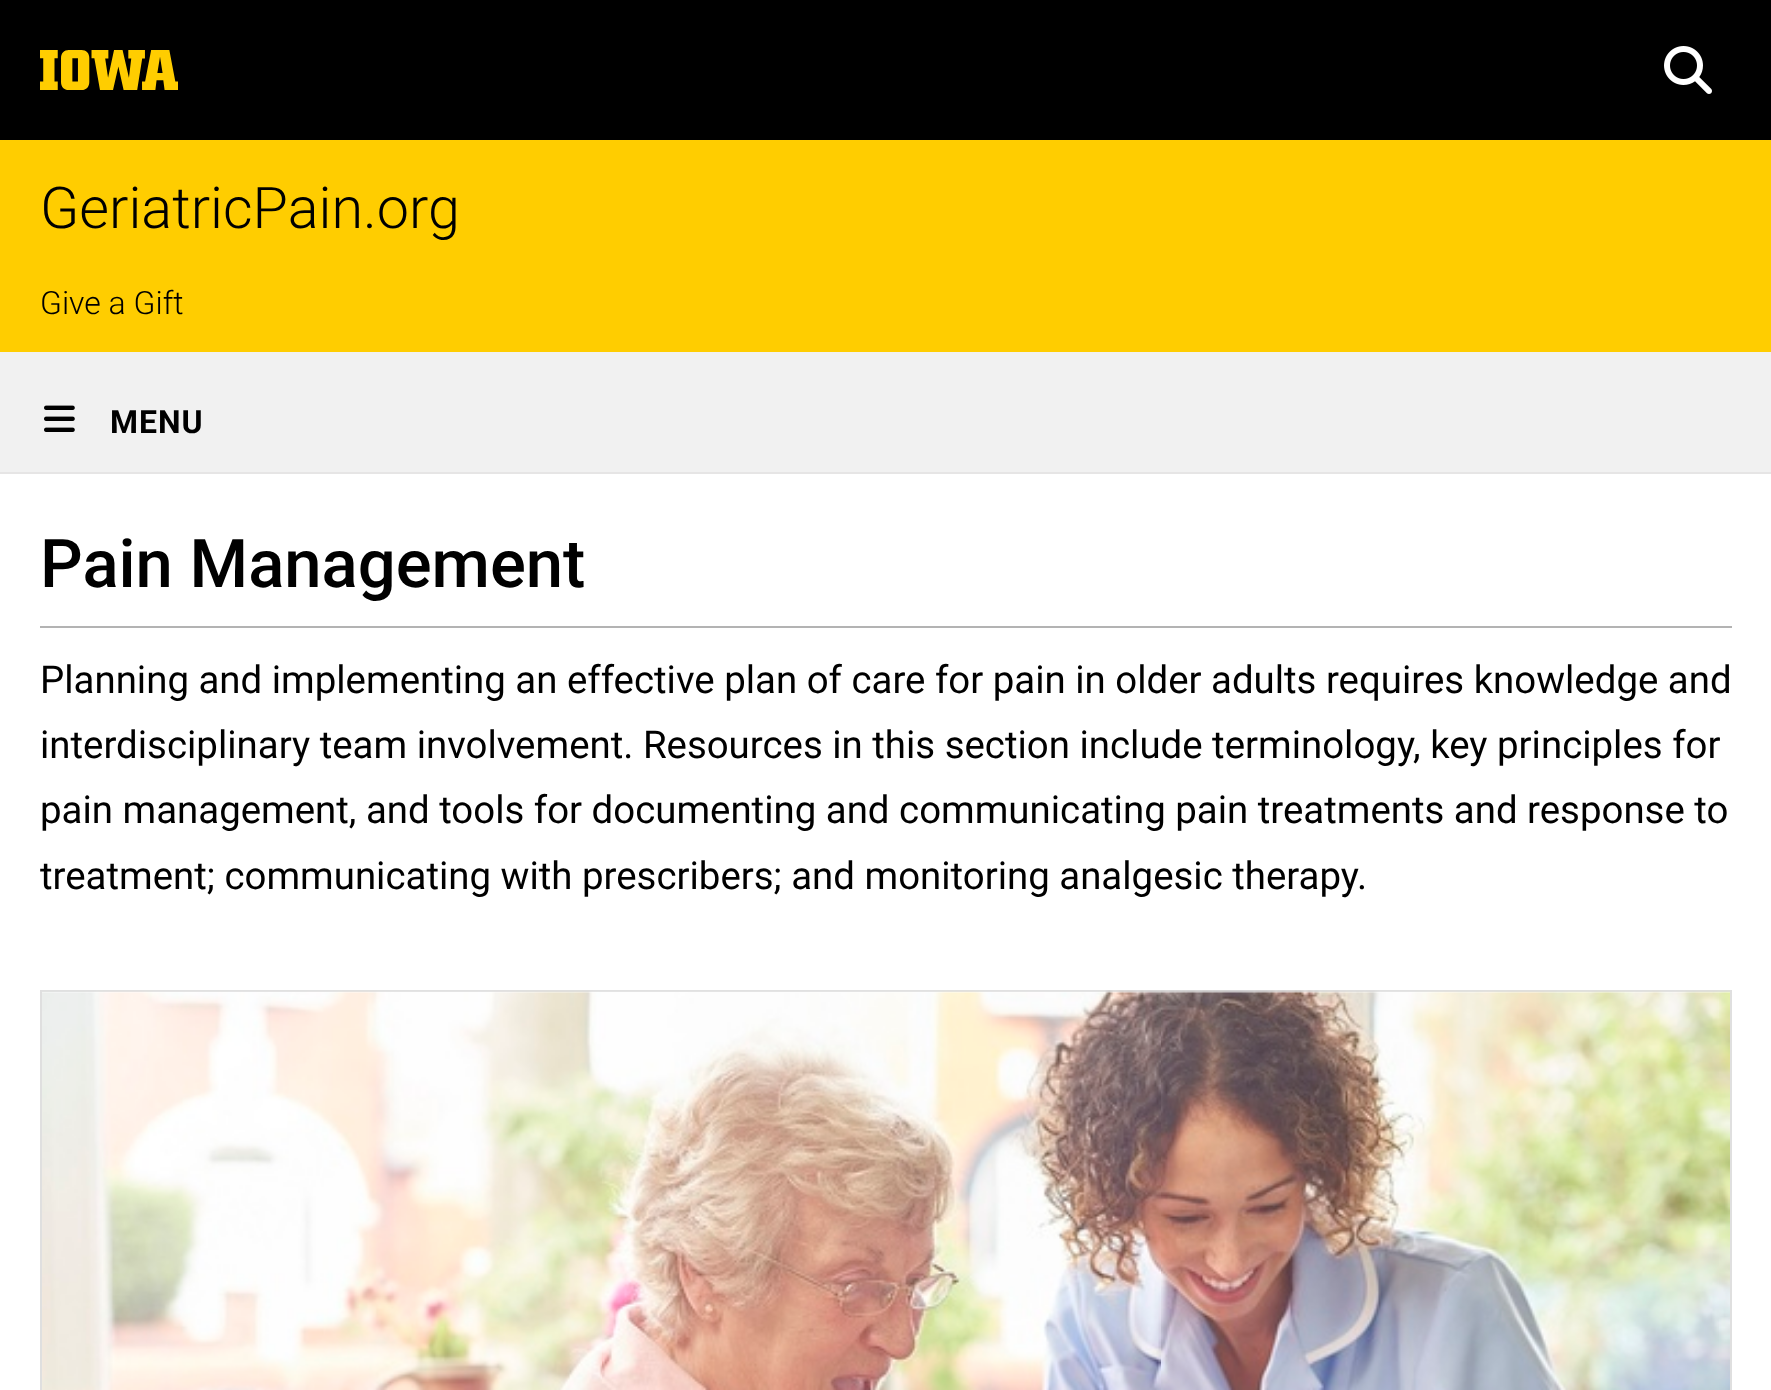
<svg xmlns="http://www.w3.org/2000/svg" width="1771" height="1390">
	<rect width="100%" height="100%" fill="#FFFFFF" />
	<rect x="0" y="0" width="1771" height="140" fill="#000000" />
	<image x="40" y="50" width="138" height="40" href="assets/img1.png" />
	<image x="1664" y="46" width="48" height="48" href="assets/img2.png" />
	<rect x="0" y="140" width="1771" height="212" fill="#FFCD00" />
	<text x="40" y="228" font-family="Roboto" font-size="57.5" font-weight="300" fill="#000000">GeriatricPain.org</text>
	<text x="40" y="314" font-family="Roboto" font-size="32" font-weight="300" fill="#000000">Give a Gift</text>
	<rect x="0" y="472" width="1771" height="2" fill="#E6E5E5" />
	<rect x="0" y="352" width="1771" height="120" fill="#F1F1F1" />
	<image x="44" y="405" width="31" height="27" href="assets/img3.png" />
	<text x="110" y="433" font-family="Roboto" font-size="32" font-weight="700" letter-spacing="1" fill="#000000">MENU</text>
	<text x="40" y="587" font-family="Roboto" font-size="67" font-weight="500" fill="#000000">Pain Management</text>
	<rect x="40" y="626" width="1692" height="2" fill="#B3B3B3" />
	<g font-family="Roboto" font-size="38.4" fill="#000000">
		<text x="40" y="693">Planning and implementing an effective plan of care for pain in older adults requires knowledge and</text>
		<text x="40" y="758">interdisciplinary team involvement. Resources in this section include terminology, key principles for</text>
		<text x="40" y="823">pain management, and tools for documenting and communicating pain treatments and response to</text>
		<text x="40" y="889">treatment; communicating with prescribers; and monitoring analgesic therapy.</text>
	</g>
	<rect x="41" y="991" width="1690" height="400" fill="none" stroke="#DFDFDF" stroke-width="2" />
	<image x="42" y="990" width="1688" height="400" href="assets/img4.png" />
</svg>
